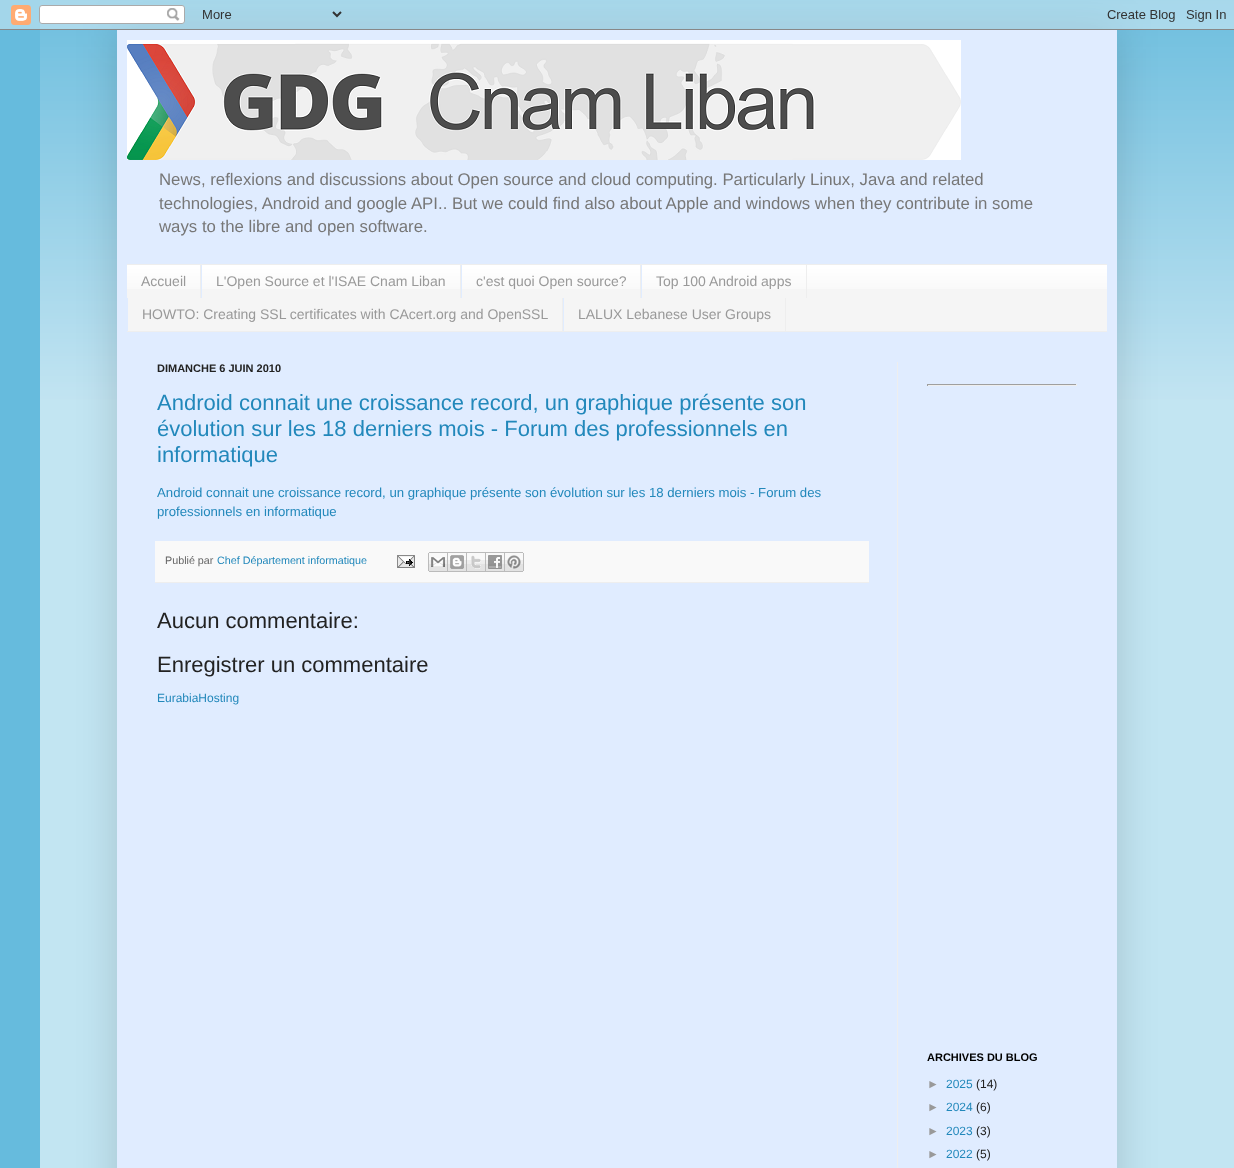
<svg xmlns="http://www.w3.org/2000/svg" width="1234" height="1168">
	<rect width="100%" height="100%" fill="#66BBDD" />
	<image x="40" y="0" width="1194" height="400" href="assets/img2.png" />
	<rect x="40" y="400" width="1194" height="768" fill="#C2E5F2" />
	<rect x="117" y="30" width="1000" height="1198" fill="#000000" fill-opacity="0.15" filter="blur(20px)" />
	<image x="0" y="0" width="1234" height="30" href="assets/img1.png" />
	<rect x="117" y="30" width="1000" height="1138" fill="#E0ECFF" />
	<image x="127" y="40" width="834" height="120" href="assets/img3.png" />
	<g font-family="Liberation Sans" font-size="16.8" fill="#777777">
		<text x="159" y="185">News, reflexions and discussions about Open source and cloud computing. Particularly Linux, Java and related</text>
		<text x="159" y="209">technologies, Android and google API.. But we could find also about Apple and windows when they contribute in some</text>
		<text x="159" y="232">ways to the libre and open software.</text>
	</g>
	<rect x="127" y="266" width="980" height="65" fill="#F5F5F5" />
	<image x="127" y="265" width="980" height="24" href="assets/img4.png" />
	<rect x="127" y="264" width="980" height="1" fill="#EEEEEE" />
	<rect x="127" y="331" width="980" height="1" fill="#EEEEEE" />
	<rect x="200" y="265" width="1" height="33" fill="#EEEEEE" />
	<text x="141" y="286" font-family="Liberation Sans" font-size="14" fill="#999999">Accueil</text>
	<rect x="460" y="265" width="1" height="33" fill="#EEEEEE" />
	<rect x="201" y="265" width="1" height="33" fill="#E0ECFF" />
	<text x="216" y="286" font-family="Liberation Sans" font-size="14" fill="#999999">L'Open Source et l'ISAE Cnam Liban</text>
	<rect x="640" y="265" width="1" height="33" fill="#EEEEEE" />
	<rect x="461" y="265" width="1" height="33" fill="#E0ECFF" />
	<text x="476" y="286" font-family="Liberation Sans" font-size="14" fill="#999999">c'est quoi Open source?</text>
	<rect x="806" y="265" width="1" height="33" fill="#EEEEEE" />
	<rect x="641" y="265" width="1" height="33" fill="#E0ECFF" />
	<text x="656" y="286" font-family="Liberation Sans" font-size="14" fill="#999999">Top 100 Android apps</text>
	<rect x="562" y="298" width="1" height="33" fill="#EEEEEE" />
	<rect x="127" y="298" width="1" height="33" fill="#E0ECFF" />
	<text x="142" y="319" font-family="Liberation Sans" font-size="14" fill="#999999">HOWTO: Creating SSL certificates with CAcert.org and OpenSSL</text>
	<rect x="785" y="298" width="1" height="33" fill="#EEEEEE" />
	<rect x="563" y="298" width="1" height="33" fill="#E0ECFF" />
	<text x="578" y="319" font-family="Liberation Sans" font-size="14" fill="#999999">LALUX Lebanese User Groups</text>
	<rect x="897" y="362" width="1" height="806" fill="#EEEEEE" />
	<text x="157" y="372" font-family="Liberation Sans" font-size="11" font-weight="700" fill="#222222">DIMANCHE 6 JUIN 2010</text>
	<g font-family="Liberation Sans" font-size="22" fill="#2288BB">
		<text x="157" y="410">Android connait une croissance record, un graphique présente son</text>
		<text x="157" y="436">évolution sur les 18 derniers mois - Forum des professionnels en</text>
		<text x="157" y="462">informatique</text>
	</g>
	<g font-family="Liberation Sans" font-size="13.2" fill="#2288BB">
		<text x="157" y="497">Android connait une croissance record, un graphique présente son évolution sur les 18 derniers mois - Forum des</text>
		<text x="157" y="516">professionnels en informatique</text>
	</g>
	<rect x="155" y="541" width="714" height="41" fill="#F9F9F9" />
	<rect x="155" y="582" width="714" height="1" fill="#EEEEEE" />
	<text x="165" y="564" font-family="Liberation Sans" font-size="10.75" fill="#666666">Publié par</text>
	<text x="217" y="564" font-family="Liberation Sans" font-size="10.75" fill="#2288BB">Chef Département informatique</text>
	<image x="397" y="555" width="18" height="13" href="assets/img5.png" />
	<image x="428" y="552" width="20" height="20" href="assets/img6.png" />
	<image x="448" y="552" width="19" height="20" href="assets/img7.png" />
	<image x="467" y="552" width="19" height="20" href="assets/img8.png" />
	<image x="486" y="552" width="19" height="20" href="assets/img9.png" />
	<image x="505" y="552" width="19" height="20" href="assets/img10.png" />
	<g font-family="Liberation Sans" font-size="22" fill="#222222">
		<text x="157" y="628">Aucun commentaire:</text>
		<text x="157" y="672">Enregistrer un commentaire</text>
	</g>
	<text x="157" y="702" font-family="Liberation Sans" font-size="12" fill="#2288BB">EurabiaHosting</text>
	<rect x="927" y="384" width="150" height="1" fill="#9F9F9F" />
	<rect x="1076" y="384" width="1" height="2" fill="#EEEEEE" />
	<rect x="927" y="385" width="150" height="1" fill="#EEEEEE" />
	<rect x="927" y="384" width="1" height="2" fill="#9F9F9F" />
	<text x="927" y="1061" font-family="Liberation Sans" font-size="11" font-weight="700" fill="#000000">ARCHIVES DU BLOG</text>
	<text x="927" y="1088" font-family="Liberation Sans" font-size="12" fill="#999999">►</text>
	<text x="946" y="1088" font-family="Liberation Sans" font-size="12" fill="#2288BB">2025</text>
	<text x="976" y="1088" font-family="Liberation Sans" font-size="12" fill="#222222">(14)</text>
	<text x="927" y="1111" font-family="Liberation Sans" font-size="12" fill="#999999">►</text>
	<text x="946" y="1111" font-family="Liberation Sans" font-size="12" fill="#2288BB">2024</text>
	<text x="976" y="1111" font-family="Liberation Sans" font-size="12" fill="#222222">(6)</text>
	<text x="927" y="1135" font-family="Liberation Sans" font-size="12" fill="#999999">►</text>
	<text x="946" y="1135" font-family="Liberation Sans" font-size="12" fill="#2288BB">2023</text>
	<text x="976" y="1135" font-family="Liberation Sans" font-size="12" fill="#222222">(3)</text>
	<text x="927" y="1158" font-family="Liberation Sans" font-size="12" fill="#999999">►</text>
	<text x="946" y="1158" font-family="Liberation Sans" font-size="12" fill="#2288BB">2022</text>
	<text x="976" y="1158" font-family="Liberation Sans" font-size="12" fill="#222222">(5)</text>
</svg>
